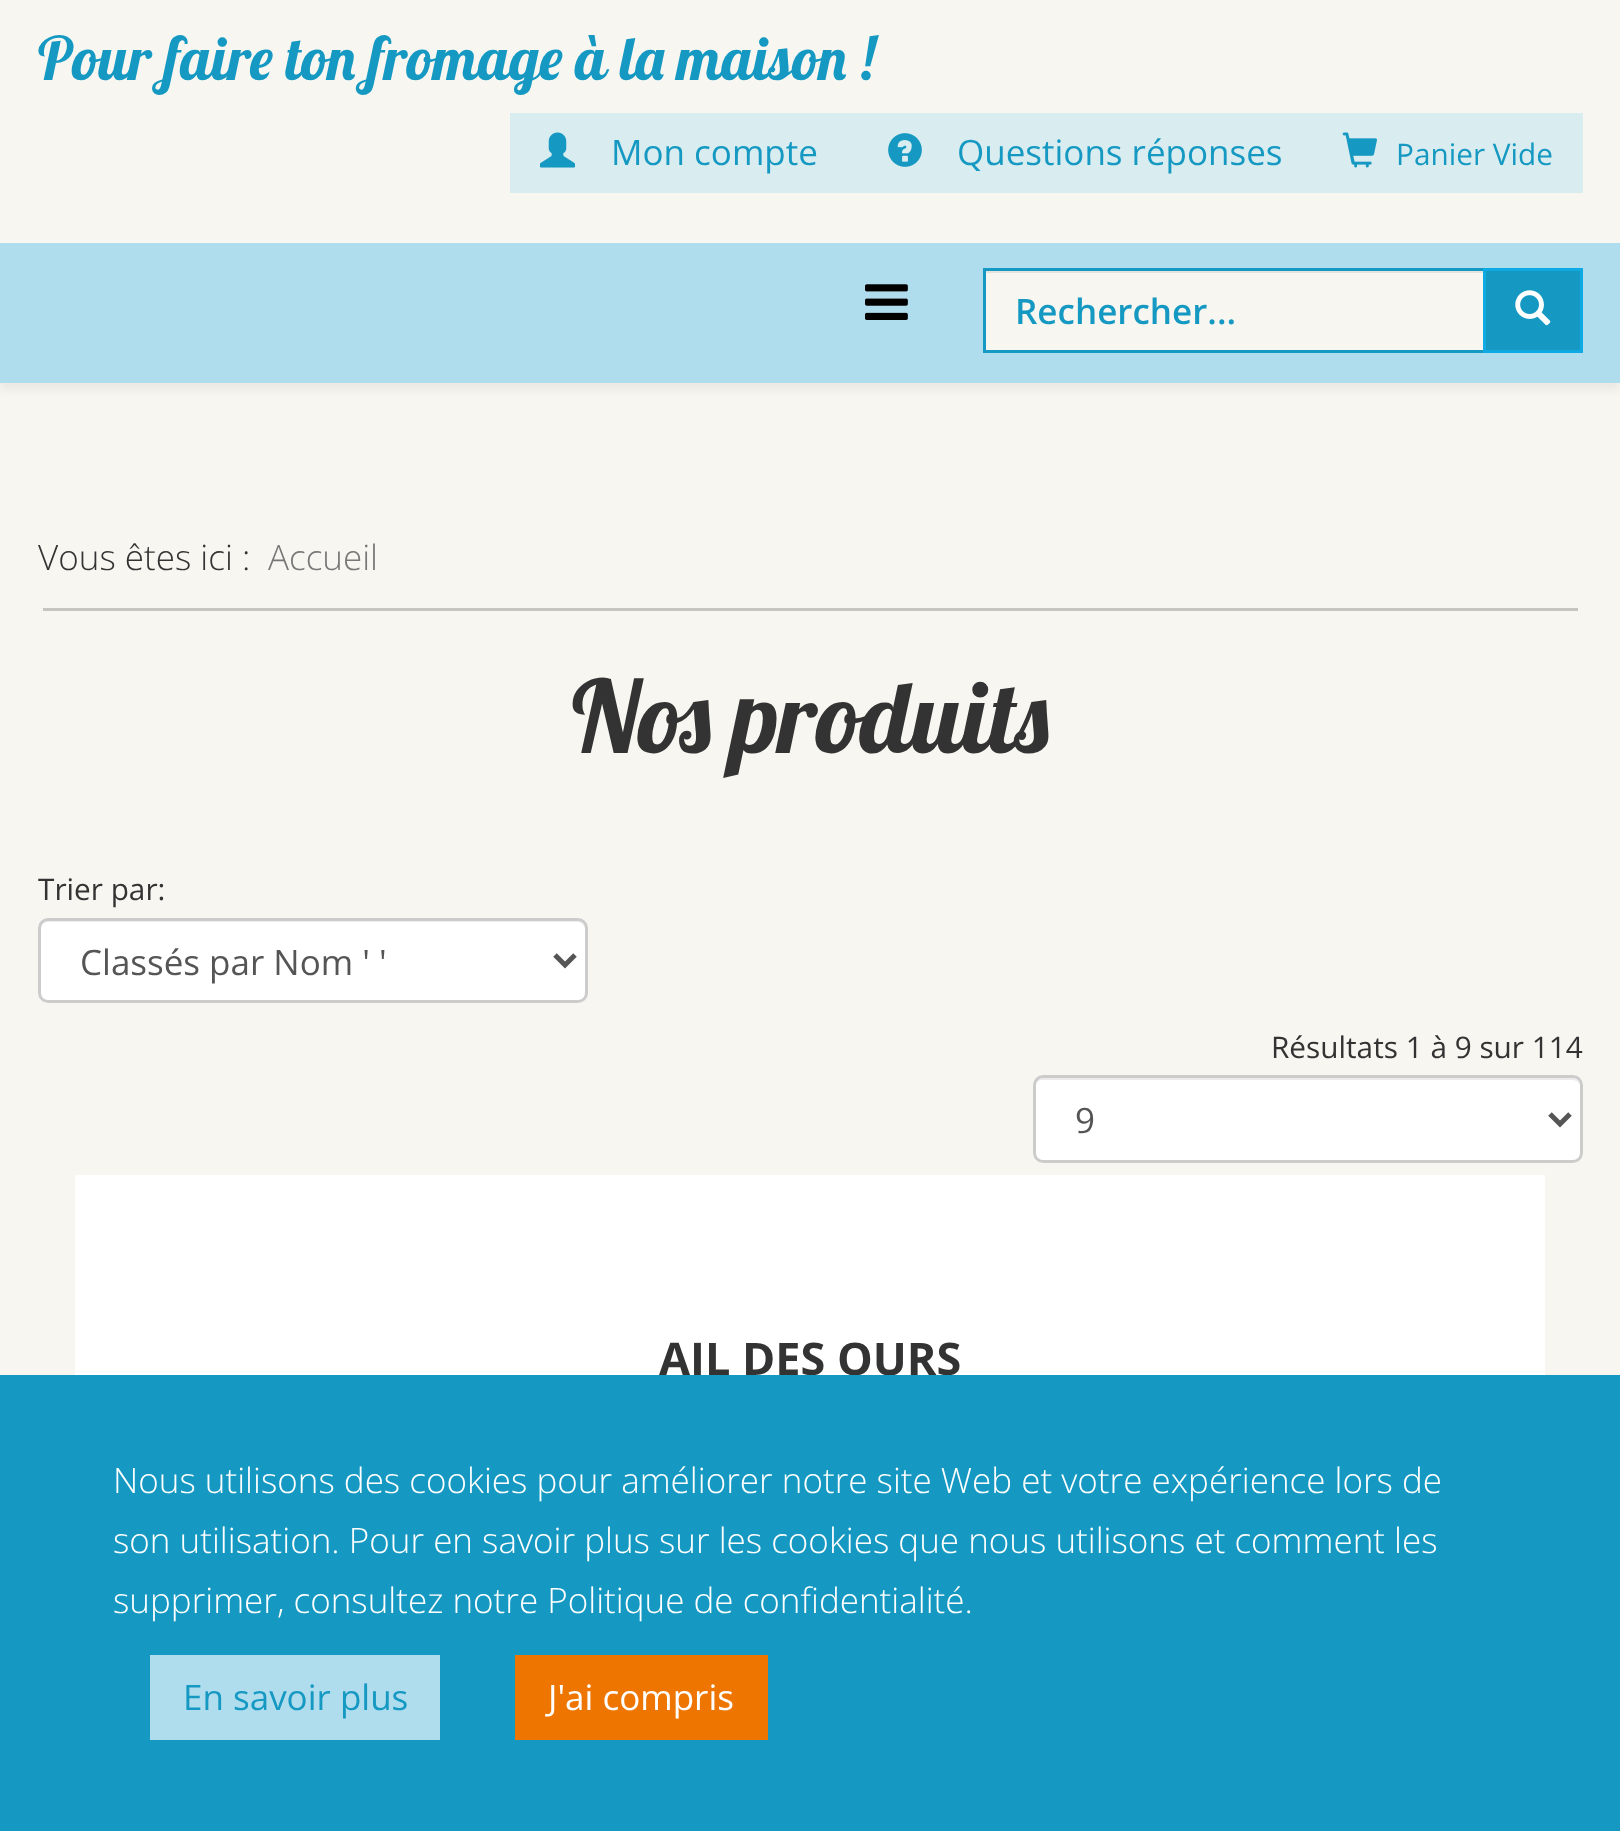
<svg xmlns="http://www.w3.org/2000/svg" width="1620" height="1831">
	<rect width="100%" height="100%" fill="#F7F6F1" />
	<text x="38" y="80" font-family="Lobster" font-size="60" fill="#1599C2">Pour faire ton fromage à la maison !</text>
	<rect x="510" y="113" width="1073" height="80" fill="#D9ECEF" />
	<image x="540" y="132" width="35" height="36" href="assets/img1.png" />
	<text x="611" y="165" font-family="Open Sans" font-size="35" fill="#1599C2">Mon compte</text>
	<image x="888" y="133" width="34" height="34" href="assets/img2.png" />
	<text x="957" y="165" font-family="Open Sans" font-size="35" fill="#1599C2">Questions réponses</text>
	<image x="1342" y="132" width="35" height="36" href="assets/img3.png" />
	<text x="1396" y="165" font-family="Open Sans" font-size="29.75" fill="#1599C2">Panier Vide</text>
	<rect x="0" y="250" width="1620" height="140" fill="#000000" fill-opacity="0.05" filter="blur(4px)" />
	<rect x="0" y="243" width="1620" height="140" fill="#B0DDED" />
	<image x="865" y="284" width="43" height="36" href="assets/img4.png" />
	<rect x="986" y="273" width="497" height="77" fill="#F7F6F1" />
	<rect x="985" y="271" width="500" height="2" fill="#E4E4DF" />
	<rect x="983" y="268" width="502" height="3" fill="#1599C2" />
	<rect x="983" y="350" width="502" height="3" fill="#1599C2" />
	<rect x="983" y="268" width="3" height="85" fill="#1599C2" />
	<text x="1015" y="324" font-family="Open Sans" font-size="35" font-weight="600" fill="#1599C2">Rechercher...</text>
	<rect x="1484.5" y="269.5" width="97" height="82" fill="#1599C2" stroke="#0FAAE4" stroke-width="3" />
	<image x="1515" y="290" width="36" height="36" href="assets/img5.png" />
	<rect x="43" y="608" width="1535" height="3" fill="#C6C5C1" />
	<text x="38" y="570" font-family="Open Sans" font-size="35" font-weight="300" fill="#333333">Vous êtes ici :</text>
	<text x="268" y="570" font-family="Open Sans" font-size="35" font-weight="300" fill="#777777">Accueil</text>
	<text x="572" y="753" font-family="Lobster" font-size="100" fill="#333333">Nos produits</text>
	<text x="38" y="900" font-family="Open Sans" font-size="29.75" fill="#333333">Trier par:</text>
	<rect x="38" y="918" width="550" height="85" rx="10" fill="#FFFFFF" />
	<path d="M48 922H578C582 922 585 926 585 930C585 925 583 920 577 920H48C42 920 40 925 40 930C40 926 43 922 48 922Z" fill="#ECECEC" />
	<rect x="39.5" y="919.5" width="547" height="82" rx="8.5" fill="none" stroke="#CCCCCC" stroke-width="3" />
	<path d="M555 955L565 965L575 955" fill="none" stroke="#555555" stroke-width="5" />
	<text x="80" y="975" font-family="Open Sans" font-size="35" fill="#555555">Classés par Nom ' '</text>
	<text x="1271" y="1058" font-family="Open Sans" font-size="29.75" fill="#333333">Résultats 1 à 9 sur 114</text>
	<rect x="1033" y="1075" width="550" height="88" rx="10" fill="#FFFFFF" />
	<path d="M1042 1080H1572C1577 1080 1580 1083 1580 1088C1580 1083 1578 1078 1572 1078H1043C1037 1078 1035 1083 1035 1088C1035 1083 1038 1080 1042 1080Z" fill="#ECECEC" />
	<rect x="1034.5" y="1076.5" width="547" height="85" rx="8.5" fill="none" stroke="#CCCCCC" stroke-width="3" />
	<path d="M1550 1114L1560 1124L1570 1114" fill="none" stroke="#555555" stroke-width="5" />
	<text x="1075" y="1133" font-family="Open Sans" font-size="35" fill="#555555">9</text>
	<rect x="75" y="1175" width="1470" height="200" fill="#FFFFFF" />
	<text x="659" y="1375" font-family="Open Sans" font-size="45" font-weight="700" fill="#333333">AIL DES OURS</text>
	<rect x="0" y="1375" width="1620" height="456" fill="#1599C2" />
	<g font-family="Open Sans" font-size="35" font-weight="300" fill="#FFFFFF">
		<text x="113" y="1493">Nous utilisons des cookies pour améliorer notre site Web et votre expérience lors de</text>
		<text x="113" y="1553">son utilisation. Pour en savoir plus sur les cookies que nous utilisons et comment les</text>
		<text x="113" y="1613">supprimer, consultez notre Politique de confidentialité.</text>
	</g>
	<rect x="150" y="1655" width="290" height="85" fill="#B0DDED" />
	<text x="183" y="1710" font-family="Open Sans" font-size="35" fill="#1599C2">En savoir plus</text>
	<rect x="515" y="1655" width="253" height="85" fill="#EE7600" />
	<text x="548" y="1710" font-family="Open Sans" font-size="35" fill="#FFFFFF">J'ai compris</text>
</svg>
